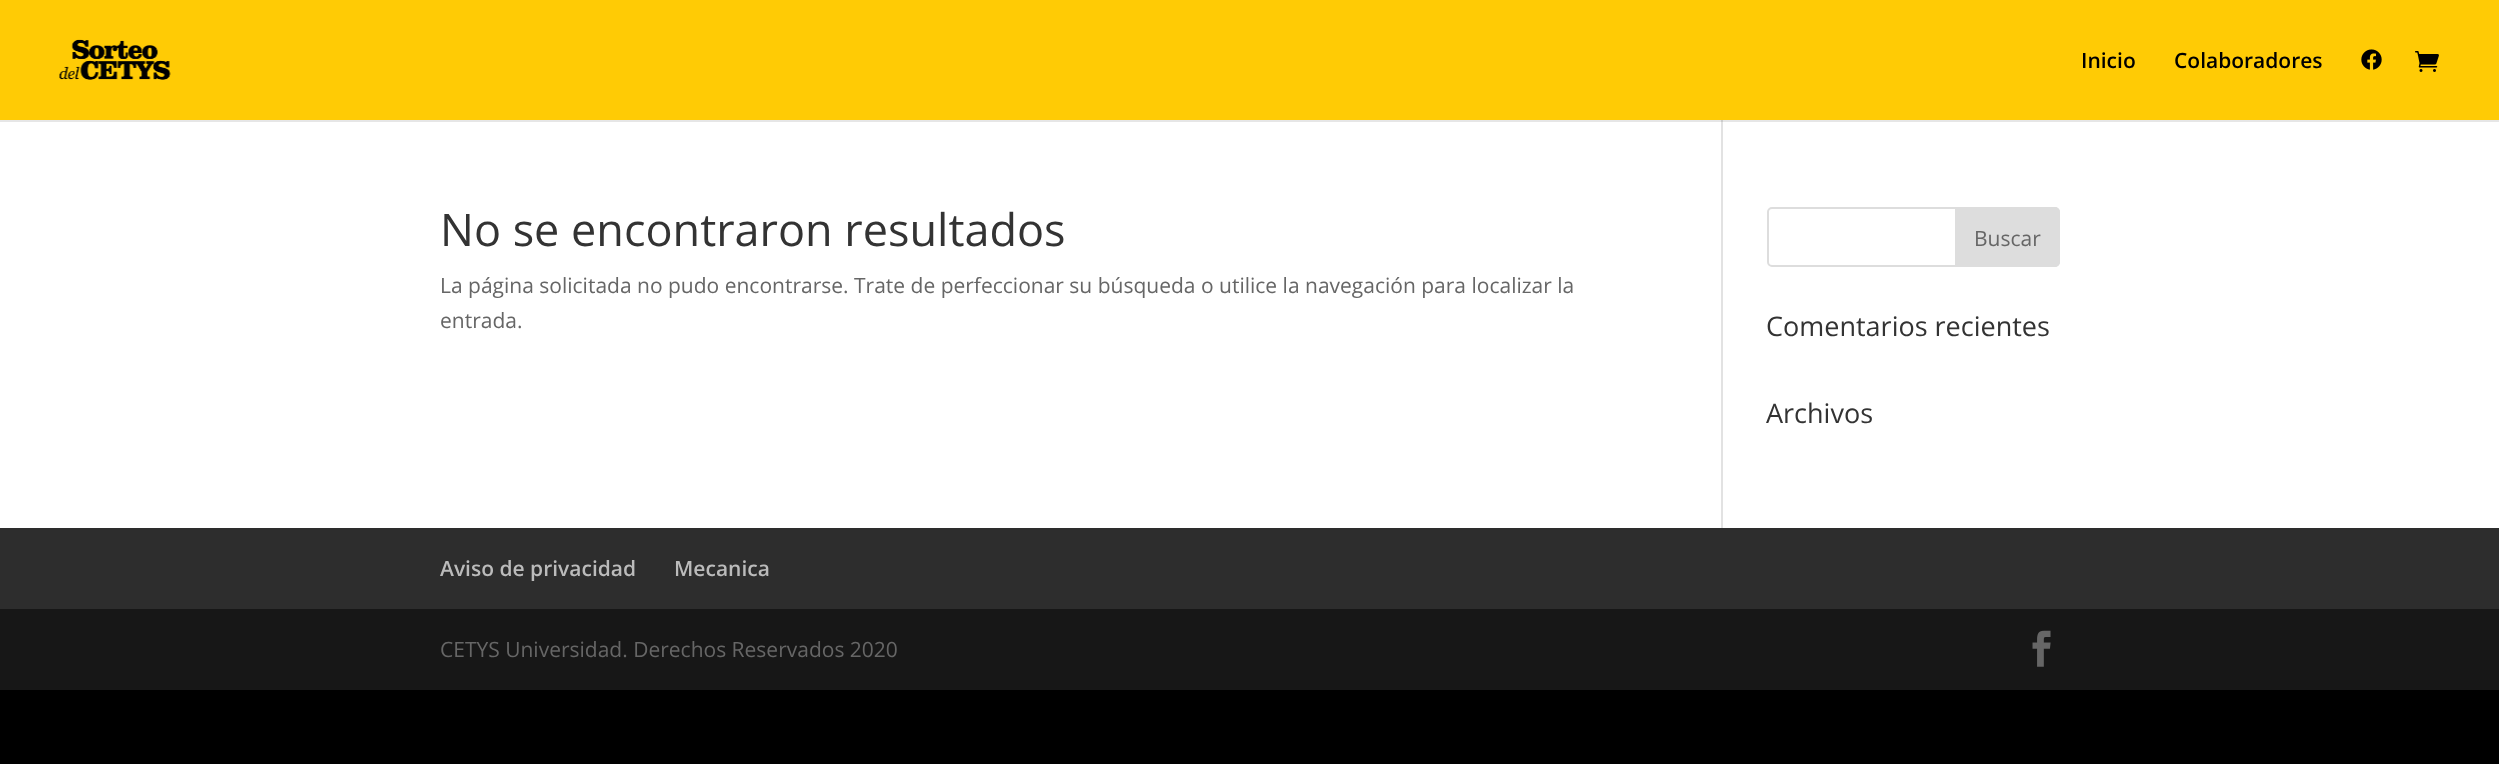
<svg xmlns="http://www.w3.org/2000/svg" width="2499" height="764">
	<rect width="100%" height="100%" fill="#000000" />
	<rect x="0" y="0" width="2499" height="120" fill="#FFCB05" />
	<image x="59" y="39" width="112" height="41" href="assets/img1.png" />
	<g font-family="Open Sans" font-size="21" font-weight="600" fill="#000000">
		<text x="2081" y="68">Inicio</text>
		<text x="2174" y="68">Colaboradores</text>
	</g>
	<image x="2361" y="49" width="21" height="21" href="assets/img2.png" />
	<image x="2415" y="51" width="24" height="21" href="assets/img3.png" />
	<rect x="0" y="122" width="2499" height="406" fill="#FFFFFF" />
	<rect x="0" y="120" width="2499" height="2" fill="#E6E6E6" />
	<rect x="1721" y="120" width="2" height="408" fill="#E2E2E2" />
	<rect x="1721" y="120" width="2" height="2" fill="#CBCBCB" />
	<text x="440" y="246" font-family="Open Sans" font-size="45" fill="#333333">No se encontraron resultados</text>
	<g font-family="Open Sans" font-size="21" fill="#666666">
		<text x="440" y="293">La página solicitada no pudo encontrarse. Trate de perfeccionar su búsqueda o utilice la navegación para localizar la</text>
		<text x="440" y="328">entrada.</text>
	</g>
	<rect x="1768" y="208" width="291" height="58" rx="4" fill="none" stroke="#DDDDDD" stroke-width="2" />
	<path d="M1956 208H2055C2057 208 2059 210 2059 212V262C2059 264 2057 266 2055 266H1956Z" fill="#DDDDDD" stroke="#DDDDDD" stroke-width="2" />
	<text x="1974" y="246" font-family="Open Sans" font-size="21" fill="#666666">Buscar</text>
	<g font-family="Open Sans" font-size="27" fill="#333333">
		<text x="1766" y="336">Comentarios recientes</text>
		<text x="1766" y="423">Archivos</text>
	</g>
	<rect x="0" y="528" width="2499" height="81" fill="#2D2D2D" />
	<g font-family="Open Sans" font-size="21" font-weight="600" fill="#BBBBBB">
		<text x="440" y="576">Aviso de privacidad</text>
		<text x="674" y="576">Mecanica</text>
	</g>
	<rect x="0" y="609" width="2499" height="81" fill="#171717" />
	<text x="440" y="657" font-family="Open Sans" font-size="21" fill="#666666">CETYS Universidad. Derechos Reservados 2020</text>
	<image x="2032" y="630" width="19" height="37" href="assets/img4.png" />
</svg>
